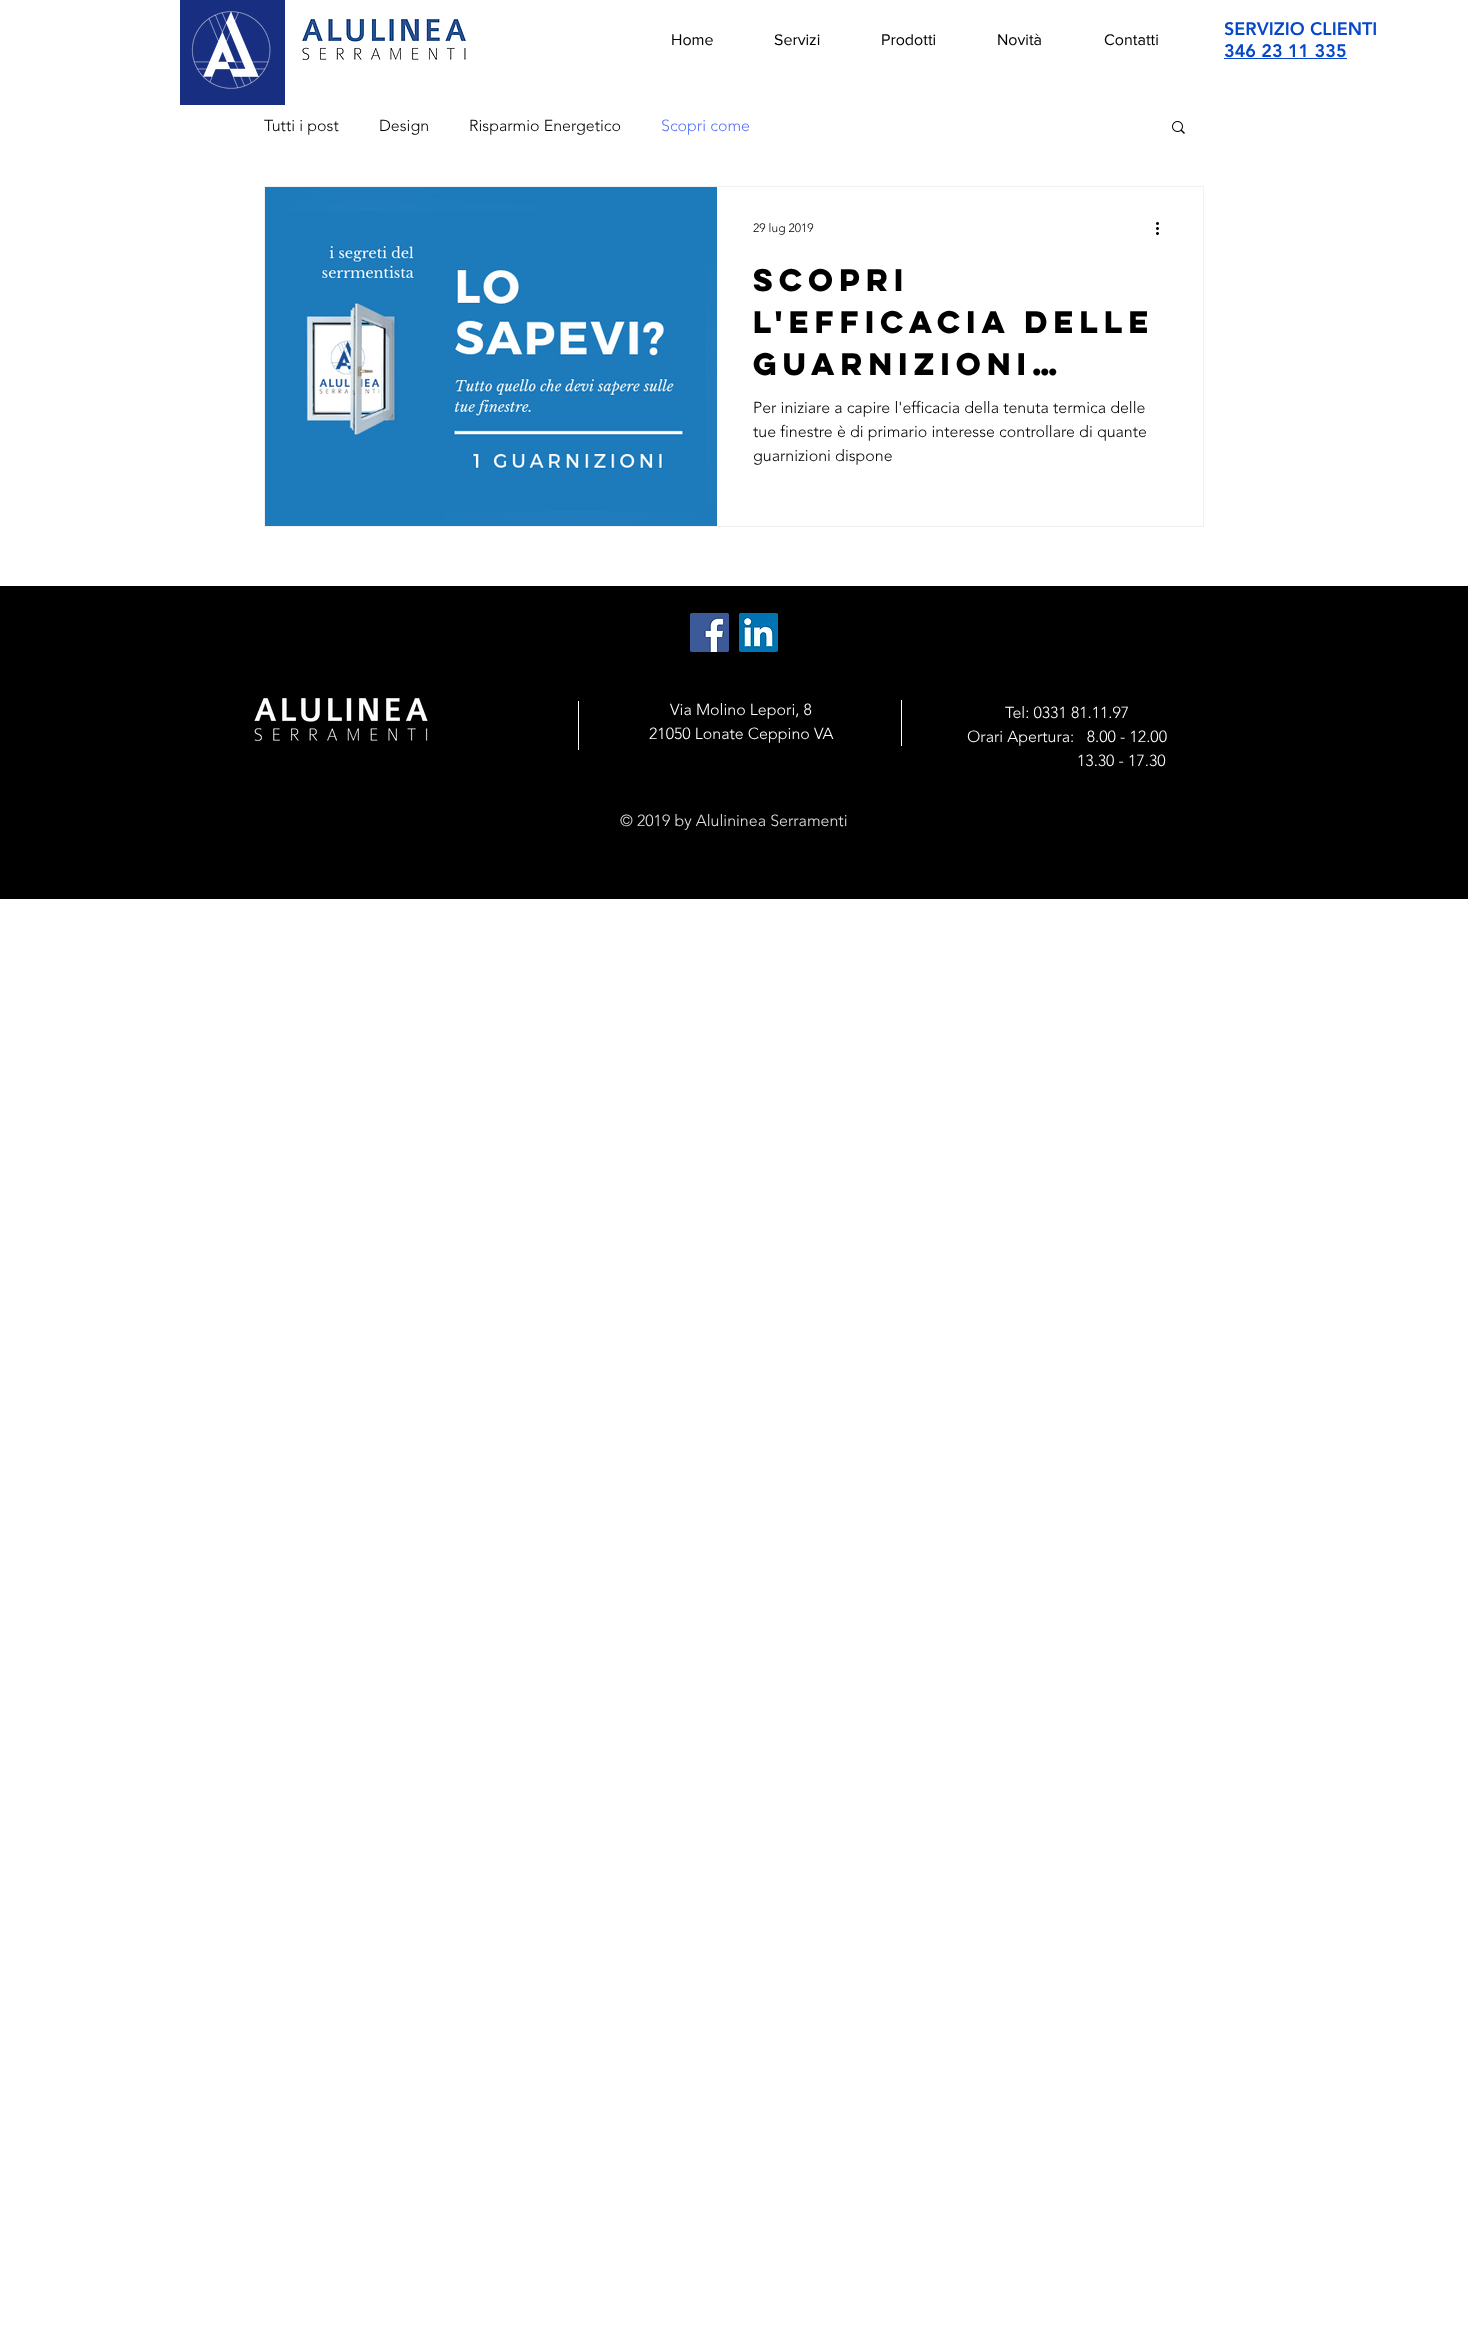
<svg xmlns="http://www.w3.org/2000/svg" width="1468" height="2331">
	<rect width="100%" height="100%" fill="#FFFFFF" />
	<rect x="180" y="0" width="105" height="105" fill="#182E81" />
	<image x="191" y="11" width="80" height="78" href="assets/img1.png" />
	<image x="302" y="19" width="164" height="41" href="assets/img2.png" />
	<g font-family="'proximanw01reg'" font-size="16" fill="#000000">
		<text x="671" y="45">Home</text>
		<text x="774" y="45">Servizi</text>
		<text x="881" y="45">Prodotti</text>
		<text x="997" y="45">Novità</text>
		<text x="1104" y="45">Contatti</text>
	</g>
	<g font-family="'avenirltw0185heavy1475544'" font-size="18" font-weight="900" fill="#0648C7">
		<text x="1224" y="35">SERVIZIO CLIENTI</text>
		<text x="1224" y="57">346 23 11 335</text>
	</g>
	<rect x="1224" y="58" width="123" height="1" fill="#0648C7" />
	<g font-family="'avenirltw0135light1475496'" font-size="16" font-weight="300" fill="#000000">
		<text x="264" y="131">Tutti i post</text>
		<text x="379" y="131">Design</text>
		<text x="469" y="131">Risparmio Energetico</text>
	</g>
	<text x="661" y="131" font-family="'avenirltw0135light1475496'" font-size="16" font-weight="300" fill="#5772FF">Scopri come</text>
	<image x="1172" y="121" width="13" height="13" href="assets/img3.png" />
	<rect x="264.5" y="186.5" width="939" height="340" fill="none" stroke="#EFF1F2" />
	<image x="265" y="187" width="452" height="339" href="assets/img4.png" />
	<image x="265" y="211" width="441" height="300" href="assets/img5.png" />
	<text x="753" y="232" font-family="'avenirltw0135light1475496'" font-size="12" font-weight="300" fill="#000000">29 lug 2019</text>
	<image x="1156" y="222" width="3" height="13" href="assets/img6.png" />
	<g font-family="'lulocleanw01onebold'" font-size="28" font-weight="700" fill="#000000">
		<text x="753" y="291">Scopri</text>
		<text x="753" y="333">l'efficacia delle</text>
		<text x="753" y="375">guarnizioni…</text>
	</g>
	<g font-family="'avenirltw0135light1475496'" font-size="16" font-weight="300" fill="#000000">
		<text x="753" y="413">Per iniziare a capire l'efficacia della tenuta termica delle</text>
		<text x="753" y="437">tue finestre è di primario interesse controllare di quante</text>
		<text x="753" y="461">guarnizioni dispone</text>
	</g>
	<rect x="0" y="586" width="1468" height="313" fill="#000000" />
	<image x="690" y="613" width="39" height="39" href="assets/img7.png" />
	<image x="739" y="613" width="39" height="39" href="assets/img8.png" />
	<image x="254" y="698" width="174" height="43" href="assets/img9.png" />
	<rect x="578" y="701" width="1" height="49" fill="#FFFFFF" />
	<g font-family="'avenirltw0135light1475496'" font-size="16" font-weight="300" fill="#FFFFFF">
		<text x="670" y="715">Via Molino Lepori, 8</text>
		<text x="649" y="739">21050 Lonate Ceppino VA</text>
	</g>
	<rect x="901" y="700" width="1" height="46" fill="#FFFFFF" />
	<g font-family="'avenirltw0135light1475496'" font-size="16" font-weight="300" fill="#FFFFFF">
		<text x="1005" y="718">Tel: 0331 81.11.97</text>
		<text x="967" y="742" xml:space="preserve">Orari Apertura:   8.00 - 12.00</text>
		<text x="1077" y="766">13.30 - 17.30</text>
	</g>
	<text x="620" y="826" font-family="'avenirltw0135light1475496'" font-size="16" font-weight="300" fill="#E0E3E5">© 2019 by Alulininea Serramenti</text>
</svg>
